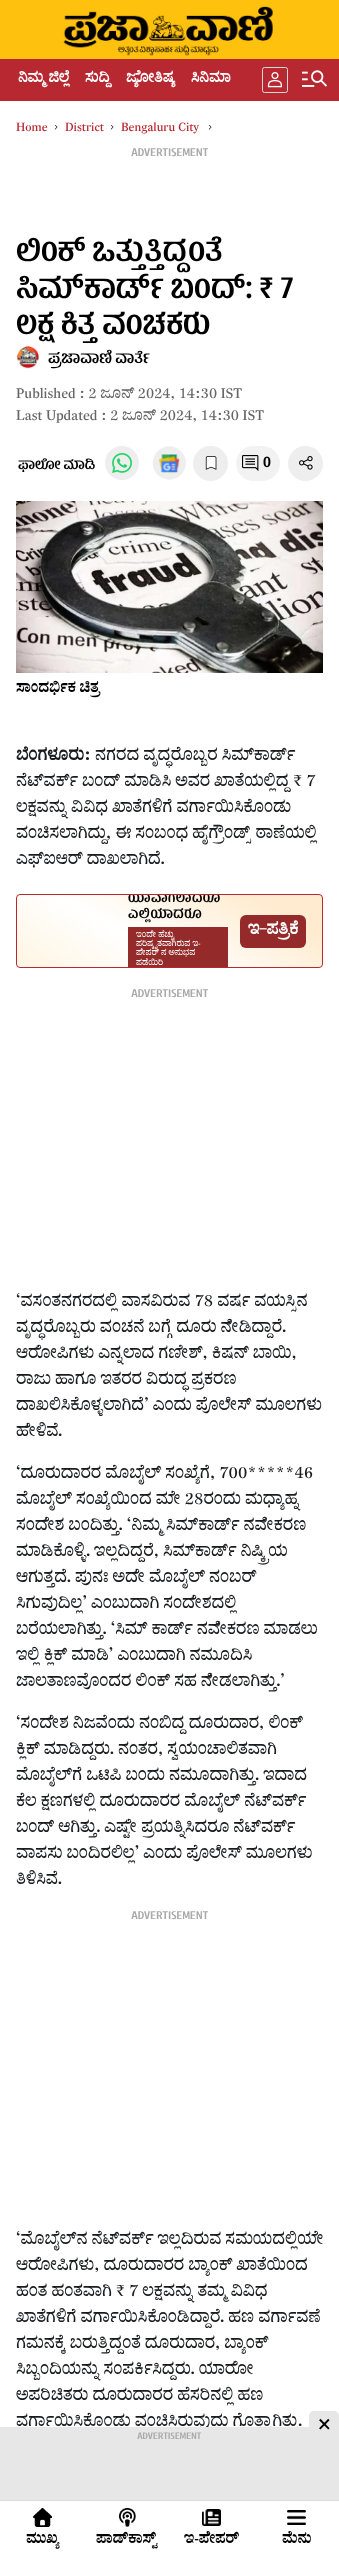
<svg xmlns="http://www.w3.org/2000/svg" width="339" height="2552">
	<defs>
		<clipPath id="clip1"><rect x="16" y="894" width="307" height="74" rx="4" /></clipPath>
		<linearGradient id="g1" gradientUnits="userSpaceOnUse" x1="82" y1="1082" x2="223" y2="838"><stop offset="0" stop-color="#FFEDCA" /><stop offset="0.53" stop-color="#FFFFFF" /><stop offset="0.87" stop-color="#FFECD0" /></linearGradient>
		<clipPath id="clip2"><rect x="17" y="895" width="305" height="72" rx="3" /></clipPath>
		<clipPath id="clip3"><rect x="16" y="147" width="307" height="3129" /></clipPath>
	</defs>
	<rect width="100%" height="100%" fill="#FFFFFF" />
	<rect x="0" y="0" width="339" height="59" fill="#FEC10D" />
	<image x="63" y="6" width="210" height="50" href="assets/img1.png" />
	<rect x="0" y="59" width="339" height="42" fill="#B82831" />
	<g font-family="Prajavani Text" font-size="14" font-weight="700" fill="#FFFFFF">
		<text x="18" y="82">ನಿಮ್ಮ ಜಿಲ್ಲೆ</text>
		<text x="85" y="82">ಸುದ್ದಿ</text>
		<text x="126" y="82">ಜ್ಯೋತಿಷ್ಯ</text>
		<text x="191" y="82">ಸಿನಿಮಾ</text>
	</g>
	<rect x="262.5" y="67.5" width="25" height="25" rx="2" fill="none" stroke="#D9D9D9" />
	<image x="267" y="72" width="15" height="16" href="assets/img2.png" />
	<image x="302" y="70" width="25" height="17" href="assets/img3.png" />
	<text x="16" y="2426" font-family="Prajavani Text" font-size="16" fill="#191B1D">ವರ್ಗಾಯಿಸಿಕೊಂಡು ವಂಚಿಸಿರುವುದು ಗೊತ್ತಾಗಿತ್ತು.</text>
	<rect x="0" y="2427" width="339" height="73" fill="#E7E7E7" />
	<rect x="309" y="2411" width="30" height="20" rx="5" fill="#E7E7E7" />
	<text x="318" y="2432" font-family="Roboto" font-size="24" fill="#000000">×</text>
	<text x="137" y="2439" font-family="'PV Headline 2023'" font-size="10" font-weight="600" fill="#A9A9A9">ADVERTISEMENT</text>
	<rect x="0" y="2500" width="339" height="1" fill="#DDDDDD" />
	<image x="33" y="2508" width="19" height="19" href="assets/img4.png" />
	<text x="26" y="2543" font-family="Prajavani Text" font-size="14" font-weight="600" fill="#000000">ಮುಖ್ಯ</text>
	<image x="119" y="2508" width="17" height="19" href="assets/img5.png" />
	<text x="96" y="2543" font-family="Prajavani Text" font-size="14" font-weight="600" fill="#000000">ಪಾಡ್‌ಕಾಸ್ಟ್</text>
	<image x="202" y="2509" width="19" height="17" href="assets/img6.png" />
	<text x="184" y="2543" font-family="Prajavani Text" font-size="14" font-weight="600" fill="#000000">ಇ-ಪೇಪರ್</text>
	<image x="287" y="2510" width="19" height="15" href="assets/img7.png" />
	<text x="282" y="2543" font-family="Prajavani Text" font-size="14" font-weight="600" fill="#000000">ಮೆನು</text>
	<text x="16" y="131" font-family="Prajavani Text" font-size="12" fill="#B82831">Home</text>
	<image x="54" y="125" width="4" height="5" href="assets/img8.png" />
	<text x="65" y="131" font-family="Prajavani Text" font-size="12" fill="#B82831">District</text>
	<image x="110" y="125" width="4" height="5" href="assets/img9.png" />
	<text x="121" y="131" font-family="Prajavani Text" font-size="12" fill="#B82831">Bengaluru City</text>
	<image x="208" y="125" width="4" height="5" href="assets/img10.png" />
	<text x="131" y="156" font-family="'PV Headline 2023'" font-size="12" font-weight="600" fill="#A9A9A9">ADVERTISEMENT</text>
	<g font-family="'PV Headline 2023'" font-size="32" font-weight="600" fill="#000000">
		<text x="16" y="261">ಲಿಂಕ್ ಒತ್ತುತ್ತಿದ್ದಂತೆ</text>
		<text x="16" y="298">ಸಿಮ್‌ಕಾರ್ಡ್ ಬಂದ್: ₹ 7</text>
		<text x="16" y="334">ಲಕ್ಷ ಕಿತ್ತ ವಂಚಕರು</text>
	</g>
	<image x="17" y="346" width="23" height="23" href="assets/img11.png" />
	<text x="48" y="363" font-family="'PV Headline 2023'" font-size="16" font-weight="600" fill="#000000">ಪ್ರಜಾವಾಣಿ ವಾರ್ತೆ</text>
	<g font-family="Prajavani Text" font-size="14" fill="#666666">
		<text x="16" y="398">Published : 2 ಜೂನ್ 2024, 14:30 IST</text>
		<text x="16" y="420">Last Updated : 2 ಜೂನ್ 2024, 14:30 IST</text>
	</g>
	<text x="18" y="469" font-family="'PV Headline 2023'" font-size="14" font-weight="600" fill="#000000">ಫಾಲೋ ಮಾಡಿ</text>
	<circle cx="122" cy="463" r="17" fill="#EEEEEE" />
	<image x="112" y="453" width="20" height="20" href="assets/img12.png" />
	<image x="152" y="446" width="34" height="34" href="assets/img13.png" />
	<circle cx="210.5" cy="463.5" r="17.5" fill="#EEEEEE" />
	<image x="205" y="456" width="12" height="14" href="assets/img14.png" />
	<rect x="236.5" y="446.5" width="43" height="34" rx="17" fill="#F2F2F2" stroke="#F2F2F2" />
	<image x="242" y="455" width="17" height="16" href="assets/img15.png" />
	<text x="263" y="467" font-family="'PV Headline 2023'" font-size="16" font-weight="600" fill="#000000">0</text>
	<circle cx="305.5" cy="463.5" r="17.5" fill="#EEEEEE" />
	<image x="299" y="456" width="14" height="14" href="assets/img16.png" />
	<image x="16" y="501" width="307" height="172" href="assets/img17.png" />
	<text x="16" y="692" font-family="Prajavani Text" font-size="14" font-weight="600" fill="#000000">ಸಾಂದರ್ಭಿಕ ಚಿತ್ರ</text>
	<text x="16" y="760" font-family="Prajavani Text" font-size="16" font-weight="700" fill="#191B1D">ಬೆಂಗಳೂರು:</text>
	<g font-family="Prajavani Text" font-size="16" fill="#191B1D">
		<text x="95" y="760">ನಗರದ ವೃದ್ಧರೊಬ್ಬರ ಸಿಮ್‌ಕಾರ್ಡ್‌</text>
		<text x="16" y="786">ನೆಟ್‌ವರ್ಕ್‌ ಬಂದ್ ಮಾಡಿಸಿ ಅವರ ಖಾತೆಯಲ್ಲಿದ್ದ ₹ 7</text>
		<text x="16" y="812">ಲಕ್ಷವನ್ನು ವಿವಿಧ ಖಾತೆಗಳಿಗೆ ವರ್ಗಾಯಿಸಿಕೊಂಡು</text>
		<text x="16" y="838">ವಂಚಿಸಲಾಗಿದ್ದು, ಈ ಸಂಬಂಧ ಹೈಗ್ರೌಂಡ್ಸ್ ಠಾಣೆಯಲ್ಲಿ</text>
		<text x="16" y="864">ಎಫ್‌ಐಆರ್ ದಾಖಲಾಗಿದೆ.</text>
	</g>
	<g clip-path="url(#clip1)">
		<rect x="17" y="895" width="305" height="72" fill="url(#g1)" />
	</g>
	<rect x="16.5" y="894.5" width="306" height="73" rx="3.5" fill="none" stroke="#B82831" />
	<g clip-path="url(#clip2)">
		<text x="128" y="902" font-family="'PV Headline 2023'" font-size="14" font-weight="600" letter-spacing="0.5" fill="#000000">ಯಾವಾಗಲಾದರೂ</text>
	</g>
	<text x="128" y="918" font-family="'PV Headline 2023'" font-size="14" font-weight="600" letter-spacing="0.5" fill="#000000">ಎಲ್ಲಿಯಾದರೂ</text>
	<rect x="128" y="927" width="100" height="40" fill="#942B2A" />
	<g font-family="Prajavani Text" font-size="8" fill="#FFFFFF">
		<text x="136" y="937">ಇಂದೇ ಹೆಚ್ಚು</text>
		<text x="136" y="946">ಪರಿಷ್ಕೃತವಾಗಿರುವ ಇ-</text>
		<text x="136" y="955">ಪೇಪರ್ ನ ಅನುಭವ</text>
		<text x="136" y="965">ಪಡೆಯಿರಿ</text>
	</g>
	<rect x="240" y="915" width="66" height="33" rx="6" fill="#942B2A" />
	<text x="248" y="934" font-family="Prajavani Text" font-size="16" font-weight="700" fill="#FFFFFF">ಇ–ಪತ್ರಿಕೆ</text>
	<text x="131" y="997" font-family="'PV Headline 2023'" font-size="12" font-weight="600" fill="#A9A9A9">ADVERTISEMENT</text>
	<text x="16" y="1306" font-family="Prajavani Text" font-size="16" fill="#191B1D">‘ವಸಂತನಗರದಲ್ಲಿ ವಾಸವಿರುವ 78 ವರ್ಷ ವಯಸ್ಸಿನ</text>
	<g clip-path="url(#clip3)">
		<text x="16" y="1332" font-family="Prajavani Text" font-size="16" fill="#191B1D">ವೃದ್ಧರೊಬ್ಬರು ವಂಚನೆ ಬಗ್ಗೆ ದೂರು ನೀಡಿದ್ದಾರೆ.</text>
	</g>
	<g font-family="Prajavani Text" font-size="16" fill="#191B1D">
		<text x="16" y="1358">ಆರೋಪಿಗಳು ಎನ್ನಲಾದ ಗಣೇಶ್, ಕಿಷನ್ ಬಾಯಿ,</text>
		<text x="16" y="1384">ರಾಜು ಹಾಗೂ ಇತರರ ವಿರುದ್ಧ ಪ್ರಕರಣ</text>
		<text x="16" y="1410">ದಾಖಲಿಸಿಕೊಳ್ಳಲಾಗಿದೆ’ ಎಂದು ಪೊಲೀಸ್ ಮೂಲಗಳು</text>
		<text x="16" y="1436">ಹೇಳಿವೆ.</text>
		<text x="16" y="1478">‘ದೂರುದಾರರ ಮೊಬೈಲ್‌ ಸಂಖ್ಯೆಗೆ, 700*****46</text>
		<text x="16" y="1504">ಮೊಬೈಲ್ ಸಂಖ್ಯೆಯಿಂದ ಮೇ 28ರಂದು ಮಧ್ಯಾಹ್ನ</text>
		<text x="16" y="1530">ಸಂದೇಶ ಬಂದಿತ್ತು. ‘ನಿಮ್ಮ ಸಿಮ್‌ಕಾರ್ಡ್ ನವೀಕರಣ</text>
		<text x="16" y="1556">ಮಾಡಿಕೊಳ್ಳಿ. ಇಲ್ಲದಿದ್ದರೆ, ಸಿಮ್‌ಕಾರ್ಡ್ ನಿಷ್ಕ್ರಿಯ</text>
		<text x="16" y="1582">ಆಗುತ್ತದೆ. ಪುನಃ ಅದೇ ಮೊಬೈಲ್ ನಂಬರ್</text>
		<text x="16" y="1608">ಸಿಗುವುದಿಲ್ಲ’ ಎಂಬುದಾಗಿ ಸಂದೇಶದಲ್ಲಿ</text>
		<text x="16" y="1634">ಬರೆಯಲಾಗಿತ್ತು. ‘ಸಿಮ್ ಕಾರ್ಡ್ ನವೀಕರಣ ಮಾಡಲು</text>
		<text x="16" y="1660">ಇಲ್ಲಿ ಕ್ಲಿಕ್ ಮಾಡಿ’ ಎಂಬುದಾಗಿ ನಮೂದಿಸಿ</text>
		<text x="16" y="1686">ಜಾಲತಾಣವೊಂದರ ಲಿಂಕ್‌ ಸಹ ನೀಡಲಾಗಿತ್ತು.’</text>
		<text x="16" y="1728">‘ಸಂದೇಶ ನಿಜವೆಂದು ನಂಬಿದ್ದ ದೂರುದಾರ, ಲಿಂಕ್</text>
	</g>
	<g clip-path="url(#clip3)">
		<text x="16" y="1754" font-family="Prajavani Text" font-size="16" fill="#191B1D">ಕ್ಲಿಕ್ ಮಾಡಿದ್ದರು. ನಂತರ, ಸ್ವಯಂಚಾಲಿತವಾಗಿ</text>
	</g>
	<g font-family="Prajavani Text" font-size="16" fill="#191B1D">
		<text x="16" y="1780">ಮೊಬೈಲ್‌ಗೆ ಒಟಿ‍ಪಿ ಬಂದು ನಮೂದಾಗಿತ್ತು. ಇದಾದ</text>
		<text x="16" y="1806">ಕೆಲ ಕ್ಷಣಗಳಲ್ಲಿ ದೂರುದಾರರ ಮೊಬೈಲ್ ನೆಟ್‌ವರ್ಕ್‌</text>
		<text x="16" y="1832">ಬಂದ್ ಆಗಿತ್ತು. ಎಷ್ಟೇ ಪ್ರಯತ್ನಿಸಿದರೂ ನೆಟ್‌ವರ್ಕ್</text>
		<text x="16" y="1858">ವಾಪಸು ಬಂದಿರಲಿಲ್ಲ’ ಎಂದು ಪೊಲೀಸ್ ಮೂಲಗಳು</text>
		<text x="16" y="1884">ತಿಳಿಸಿವೆ.</text>
	</g>
	<text x="131" y="1919" font-family="'PV Headline 2023'" font-size="12" font-weight="600" fill="#A9A9A9">ADVERTISEMENT</text>
	<g font-family="Prajavani Text" font-size="16" fill="#191B1D">
		<text x="16" y="2244">‘ಮೊಬೈಲ್‌ನ ನೆಟ್‌ವರ್ಕ್‌ ಇಲ್ಲದಿರುವ ಸಮಯದಲ್ಲಿಯೇ</text>
		<text x="16" y="2270">ಆರೋಪಿಗಳು, ದೂರುದಾರರ ಬ್ಯಾಂಕ್ ಖಾತೆಯಿಂದ</text>
		<text x="16" y="2296">ಹಂತ ಹಂತವಾಗಿ ₹ 7 ಲಕ್ಷವನ್ನು ತಮ್ಮ ವಿವಿಧ</text>
		<text x="16" y="2322">ಖಾತೆಗಳಿಗೆ ವರ್ಗಾಯಿಸಿಕೊಂಡಿದ್ದಾರೆ. ಹಣ ವರ್ಗಾವಣೆ</text>
		<text x="16" y="2348">ಗಮನಕ್ಕೆ ಬರುತ್ತಿದ್ದಂತೆ ದೂರುದಾರ, ಬ್ಯಾಂಕ್</text>
		<text x="16" y="2374">ಸಿಬ್ಬಂದಿಯನ್ನು ಸಂಪರ್ಕಿಸಿದ್ದರು. ಯಾರೋ</text>
		<text x="16" y="2400">ಅಪರಿಚಿತರು ದೂರುದಾರರ ಹೆಸರಿನಲ್ಲಿ ಹಣ</text>
	</g>
</svg>
